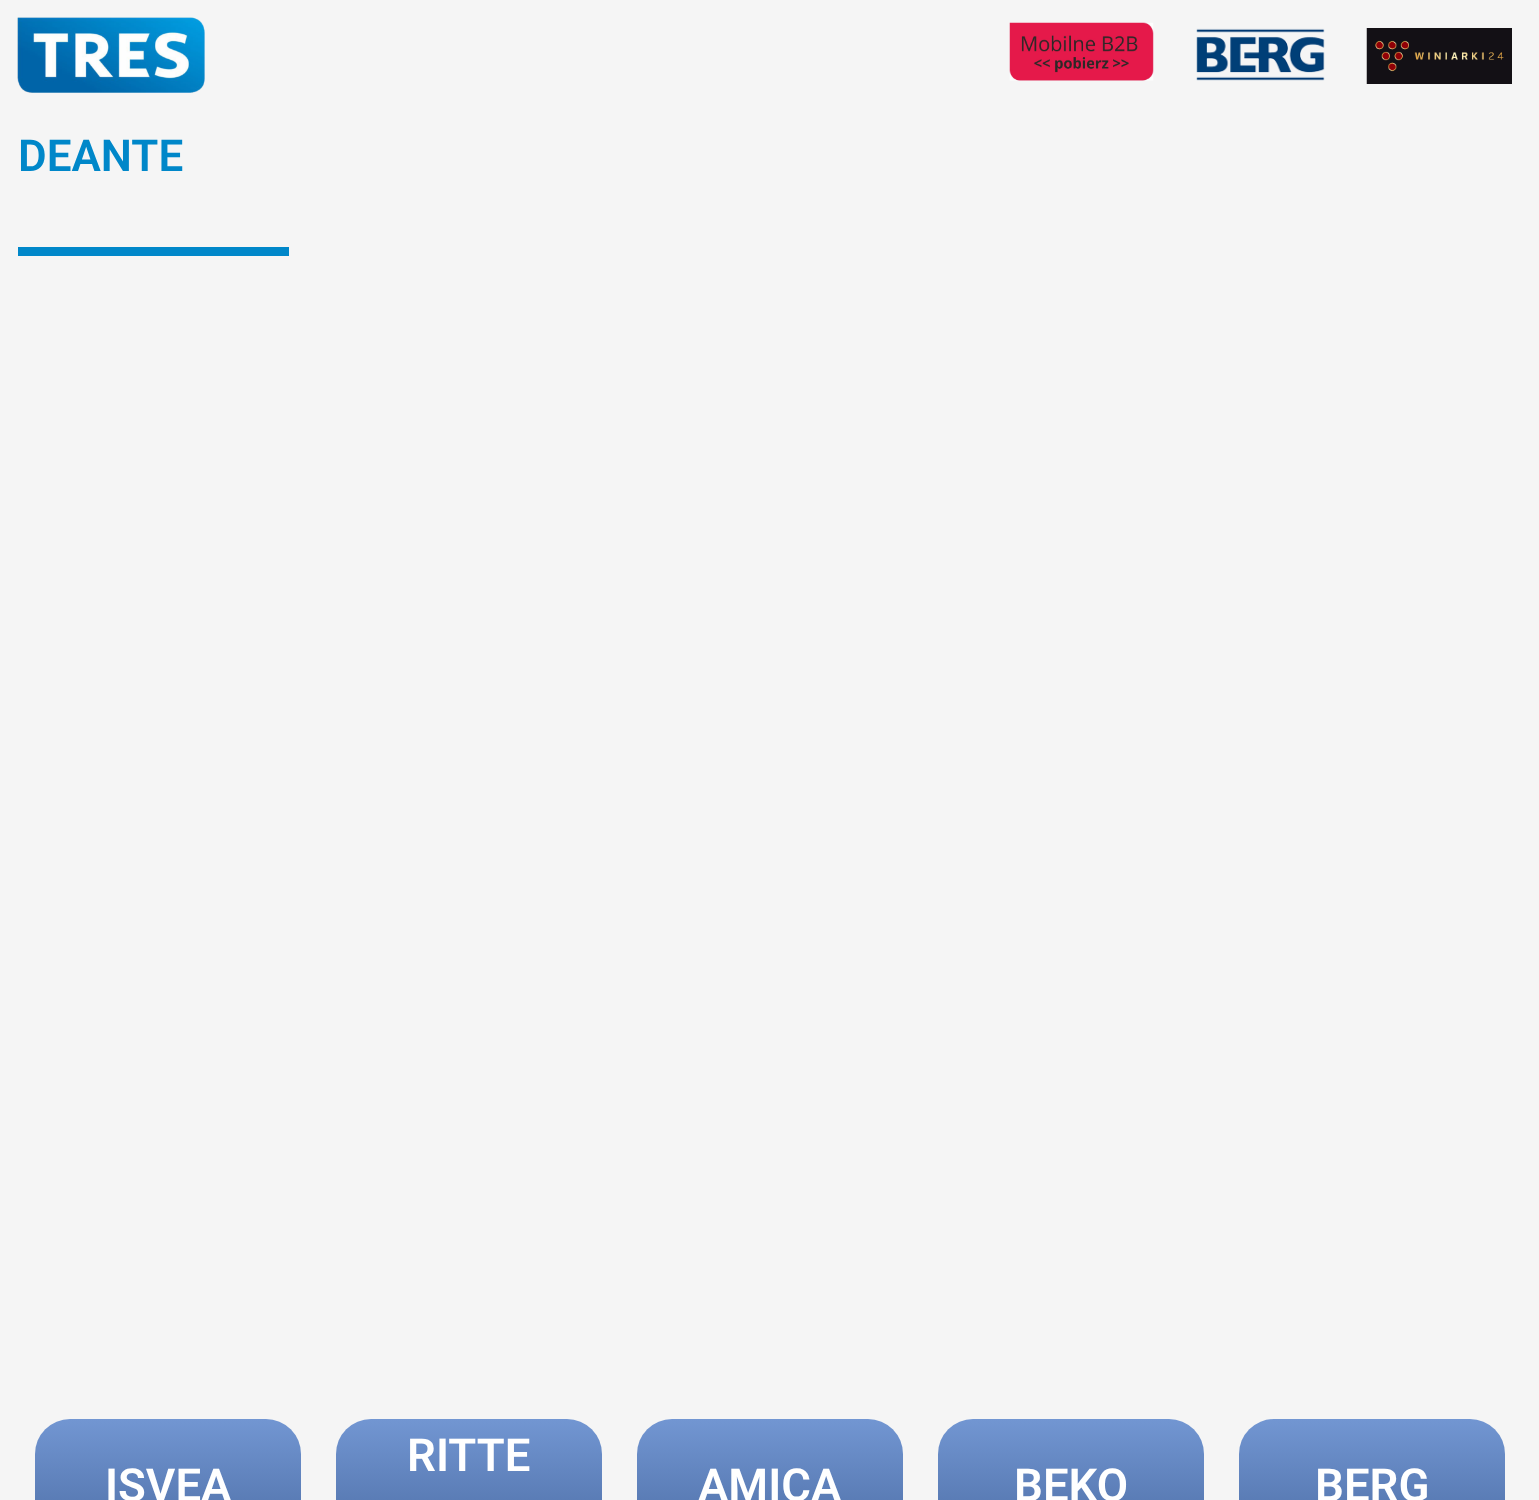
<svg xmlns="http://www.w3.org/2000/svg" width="1539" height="1500">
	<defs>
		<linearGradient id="g1" gradientUnits="userSpaceOnUse" x1="469" y1="1419" x2="469" y2="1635"><stop offset="0" stop-color="#7296D2" /><stop offset="1" stop-color="#335287" /></linearGradient>
		<linearGradient id="g2" gradientUnits="userSpaceOnUse" x1="168" y1="1419" x2="168" y2="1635"><stop offset="0" stop-color="#7296D2" /><stop offset="1" stop-color="#335287" /></linearGradient>
		<linearGradient id="g3" gradientUnits="userSpaceOnUse" x1="770" y1="1419" x2="770" y2="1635"><stop offset="0" stop-color="#7296D2" /><stop offset="1" stop-color="#335287" /></linearGradient>
		<linearGradient id="g4" gradientUnits="userSpaceOnUse" x1="1071" y1="1419" x2="1071" y2="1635"><stop offset="0" stop-color="#7296D2" /><stop offset="1" stop-color="#335287" /></linearGradient>
		<linearGradient id="g5" gradientUnits="userSpaceOnUse" x1="1372" y1="1419" x2="1372" y2="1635"><stop offset="0" stop-color="#7296D2" /><stop offset="1" stop-color="#335287" /></linearGradient>
	</defs>
	<rect width="100%" height="100%" fill="#F5F5F5" />
	<image x="17" y="17" width="188" height="76" href="assets/img1.png" />
	<image x="1009" y="22" width="145" height="59" href="assets/img2.png" />
	<image x="1196" y="28" width="129" height="53" href="assets/img3.png" />
	<image x="1366" y="28" width="146" height="56" href="assets/img4.png" />
	<text x="18" y="171" font-family="Roboto" font-size="44" font-weight="600" fill="#0087C9">DEANTE</text>
	<rect x="18" y="247" width="271" height="9" fill="#0087C9" />
	<rect x="336" y="1419" width="266" height="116" rx="35" fill="url(#g1)" />
	<text x="407" y="1471" font-family="Roboto" font-size="45.5" font-weight="600" fill="#FFFFFF">RITTE</text>
	<rect x="35" y="1419" width="266" height="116" rx="35" fill="url(#g2)" />
	<text x="105" y="1501" font-family="Roboto" font-size="45.5" font-weight="600" fill="#FFFFFF">ISVEA</text>
	<rect x="637" y="1419" width="266" height="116" rx="35" fill="url(#g3)" />
	<text x="698" y="1501" font-family="Roboto" font-size="45.5" font-weight="600" fill="#FFFFFF">AMICA</text>
	<rect x="938" y="1419" width="266" height="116" rx="35" fill="url(#g4)" />
	<text x="1014" y="1501" font-family="Roboto" font-size="45.5" font-weight="600" fill="#FFFFFF">BEKO</text>
	<rect x="1239" y="1419" width="266" height="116" rx="35" fill="url(#g5)" />
	<text x="1315" y="1501" font-family="Roboto" font-size="45.5" font-weight="600" fill="#FFFFFF">BERG</text>
</svg>
